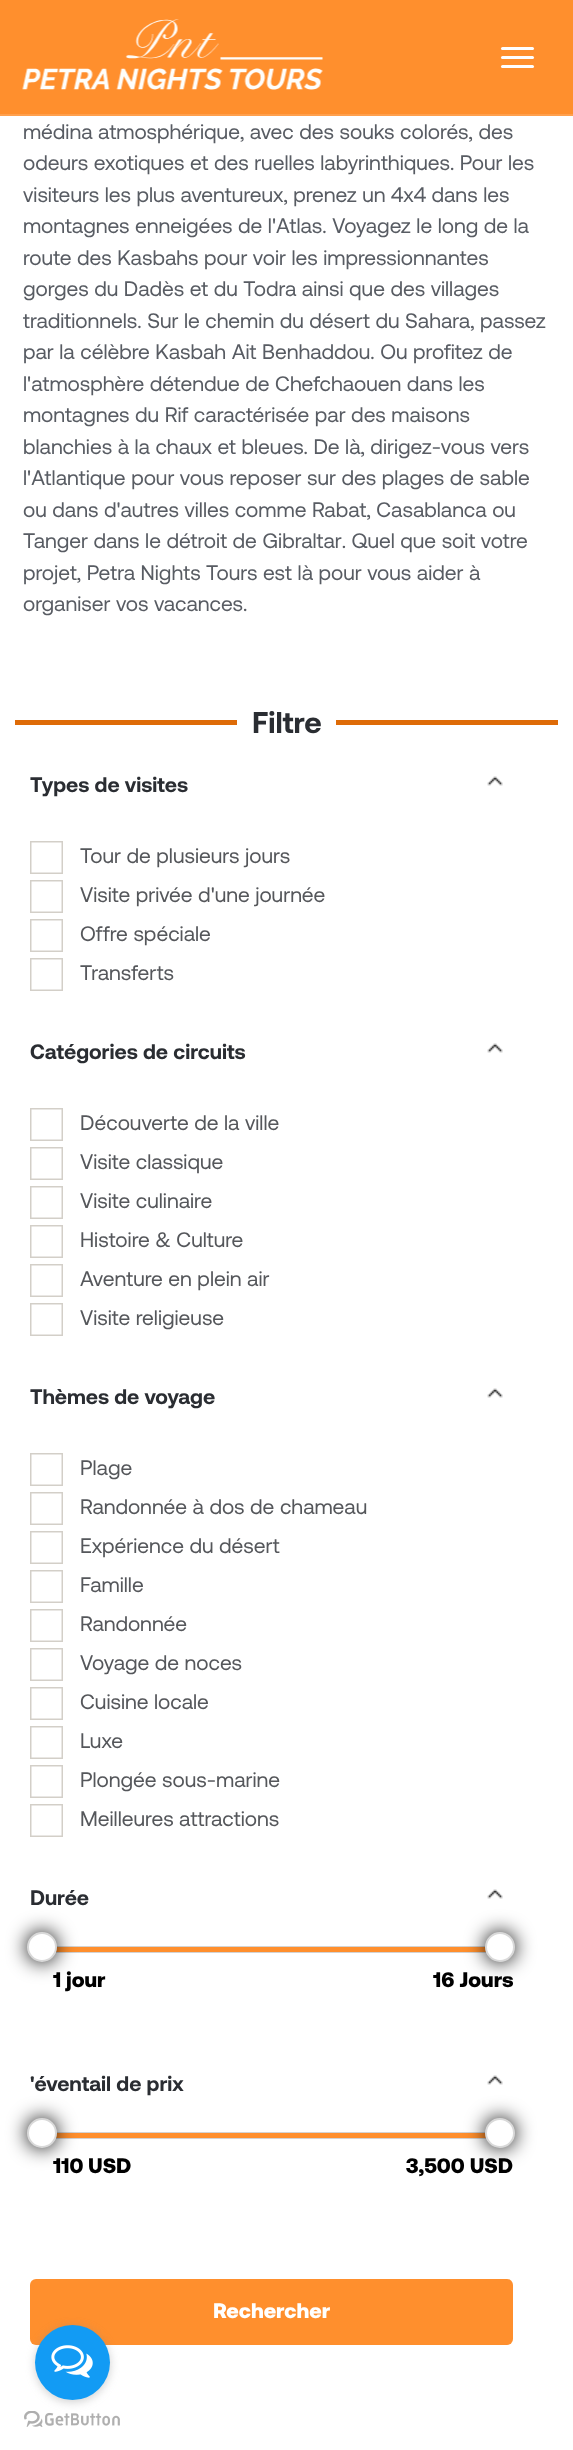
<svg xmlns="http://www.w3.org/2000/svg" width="573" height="2450">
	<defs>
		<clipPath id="clip1"><rect x="53" y="1953" width="460" height="56" /></clipPath>
		<clipPath id="clip2"><rect x="53" y="2139" width="460" height="56" /></clipPath>
	</defs>
	<rect width="100%" height="100%" fill="#FFFFFF" />
	<rect x="0" y="0" width="573" height="114" fill="#FF8F2D" />
	<rect x="0" y="114" width="573" height="2" fill="#FFA04D" />
	<image x="22" y="19" width="301" height="71" href="assets/img1.png" />
	<rect x="501" y="47" width="33" height="3" rx="1.5" fill="#FFFFFF" />
	<rect x="501" y="56" width="33" height="3" rx="1.5" fill="#FFFFFF" />
	<rect x="501" y="65" width="33" height="3" rx="1.5" fill="#FFFFFF" />
	<g font-family="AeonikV" font-size="21" fill="#585C63">
		<text x="23" y="139">médina atmosphérique, avec des souks colorés, des</text>
		<text x="23" y="170">odeurs exotiques et des ruelles labyrinthiques. Pour les</text>
		<text x="23" y="202">visiteurs les plus aventureux, prenez un 4x4 dans les</text>
		<text x="23" y="233">montagnes enneigées de l'Atlas. Voyagez le long de la</text>
		<text x="23" y="265">route des Kasbahs pour voir les impressionnantes</text>
		<text x="23" y="296">gorges du Dadès et du Todra ainsi que des villages</text>
		<text x="23" y="328">traditionnels. Sur le chemin du désert du Sahara, passez</text>
		<text x="23" y="359">par la célèbre Kasbah Ait Benhaddou. Ou profitez de</text>
		<text x="23" y="391">l'atmosphère détendue de Chefchaouen dans les</text>
		<text x="23" y="422">montagnes du Rif caractérisée par des maisons</text>
		<text x="23" y="454">blanchies à la chaux et bleues. De là, dirigez-vous vers</text>
		<text x="23" y="485">l'Atlantique pour vous reposer sur des plages de sable</text>
		<text x="23" y="517">ou dans d'autres villes comme Rabat, Casablanca ou</text>
		<text x="23" y="548">Tanger dans le détroit de Gibraltar. Quel que soit votre</text>
		<text x="23" y="580">projet, Petra Nights Tours est là pour vous aider à</text>
		<text x="23" y="611">organiser vos vacances.</text>
	</g>
	<rect x="15" y="720" width="543" height="5" fill="#DE6B07" />
	<rect x="237" y="720" width="99" height="5" fill="#FFFFFF" />
	<text x="252" y="733" font-family="AeonikV" font-size="30" font-weight="700" fill="#2A2D32">Filtre</text>
	<text x="30" y="792" font-family="AeonikV" font-size="21" font-weight="700" fill="#2A2D32">Types de visites</text>
	<image x="487" y="776" width="16" height="10" href="assets/img2.png" />
	<image x="30" y="841" width="33" height="33" href="assets/img3.png" />
	<text x="80" y="863" font-family="AeonikV" font-size="21" fill="#55575B">Tour de plusieurs jours</text>
	<image x="30" y="880" width="33" height="33" href="assets/img3.png" />
	<text x="80" y="902" font-family="AeonikV" font-size="21" fill="#55575B">Visite privée d'une journée</text>
	<image x="30" y="919" width="33" height="33" href="assets/img3.png" />
	<text x="80" y="941" font-family="AeonikV" font-size="21" fill="#55575B">Offre spéciale</text>
	<image x="30" y="958" width="33" height="33" href="assets/img3.png" />
	<text x="80" y="980" font-family="AeonikV" font-size="21" fill="#55575B">Transferts</text>
	<text x="30" y="1059" font-family="AeonikV" font-size="21" font-weight="700" fill="#2A2D32">Catégories de circuits</text>
	<image x="487" y="1043" width="16" height="10" href="assets/img2.png" />
	<image x="30" y="1108" width="33" height="33" href="assets/img3.png" />
	<text x="80" y="1130" font-family="AeonikV" font-size="21" fill="#55575B">Découverte de la ville</text>
	<image x="30" y="1147" width="33" height="33" href="assets/img3.png" />
	<text x="80" y="1169" font-family="AeonikV" font-size="21" fill="#55575B">Visite classique</text>
	<image x="30" y="1186" width="33" height="33" href="assets/img3.png" />
	<text x="80" y="1208" font-family="AeonikV" font-size="21" fill="#55575B">Visite culinaire</text>
	<image x="30" y="1225" width="33" height="33" href="assets/img3.png" />
	<text x="80" y="1247" font-family="AeonikV" font-size="21" fill="#55575B">Histoire &amp; Culture</text>
	<image x="30" y="1264" width="33" height="33" href="assets/img3.png" />
	<text x="80" y="1286" font-family="AeonikV" font-size="21" fill="#55575B">Aventure en plein air</text>
	<image x="30" y="1303" width="33" height="33" href="assets/img3.png" />
	<text x="80" y="1325" font-family="AeonikV" font-size="21" fill="#55575B">Visite religieuse</text>
	<text x="30" y="1404" font-family="AeonikV" font-size="21" font-weight="700" fill="#2A2D32">Thèmes de voyage</text>
	<image x="487" y="1388" width="16" height="10" href="assets/img2.png" />
	<image x="30" y="1453" width="33" height="33" href="assets/img3.png" />
	<text x="80" y="1475" font-family="AeonikV" font-size="21" fill="#55575B">Plage</text>
	<image x="30" y="1492" width="33" height="33" href="assets/img3.png" />
	<text x="80" y="1514" font-family="AeonikV" font-size="21" fill="#55575B">Randonnée à dos de chameau</text>
	<image x="30" y="1531" width="33" height="33" href="assets/img3.png" />
	<text x="80" y="1553" font-family="AeonikV" font-size="21" fill="#55575B">Expérience du désert</text>
	<image x="30" y="1570" width="33" height="33" href="assets/img3.png" />
	<text x="80" y="1592" font-family="AeonikV" font-size="21" fill="#55575B">Famille</text>
	<image x="30" y="1609" width="33" height="33" href="assets/img3.png" />
	<text x="80" y="1631" font-family="AeonikV" font-size="21" fill="#55575B">Randonnée</text>
	<image x="30" y="1648" width="33" height="33" href="assets/img3.png" />
	<text x="80" y="1670" font-family="AeonikV" font-size="21" fill="#55575B">Voyage de noces</text>
	<image x="30" y="1687" width="33" height="33" href="assets/img3.png" />
	<text x="80" y="1709" font-family="AeonikV" font-size="21" fill="#55575B">Cuisine locale</text>
	<image x="30" y="1726" width="33" height="33" href="assets/img3.png" />
	<text x="80" y="1748" font-family="AeonikV" font-size="21" fill="#55575B">Luxe</text>
	<image x="30" y="1765" width="33" height="33" href="assets/img3.png" />
	<text x="80" y="1787" font-family="AeonikV" font-size="21" fill="#55575B">Plongée sous-marine</text>
	<image x="30" y="1804" width="33" height="33" href="assets/img3.png" />
	<text x="80" y="1826" font-family="AeonikV" font-size="21" fill="#55575B">Meilleures attractions</text>
	<text x="30" y="1905" font-family="AeonikV" font-size="21" font-weight="700" fill="#2A2D32">Durée</text>
	<image x="487" y="1889" width="16" height="10" href="assets/img2.png" />
	<rect x="54" y="1947" width="458" height="5" rx="2.5" fill="none" stroke="#D3D3D3" stroke-width="2" />
	<rect x="54" y="1947" width="432" height="5" fill="#FF8F2D" />
	<rect x="27" y="1932" width="30" height="30" rx="15" fill="#000000" filter="blur(10px)" />
	<circle cx="42" cy="1947" r="14" fill="#FFFFFF" stroke="#D9D9D9" stroke-width="2" />
	<rect x="485" y="1932" width="30" height="30" rx="15" fill="#000000" filter="blur(10px)" />
	<circle cx="500" cy="1947" r="14" fill="#FFFFFF" stroke="#D9D9D9" stroke-width="2" />
	<g clip-path="url(#clip1)">
		<text x="53" y="1987" font-family="AeonikV" font-size="21" font-weight="900" fill="#000000">1</text>
	</g>
	<g font-family="AeonikV" font-size="21" font-weight="900" fill="#000000">
		<text x="66" y="1987">jour</text>
		<text x="433" y="1987">16 Jours</text>
	</g>
	<text x="30" y="2091" font-family="AeonikV" font-size="21" font-weight="700" fill="#2A2D32">'éventail de prix</text>
	<image x="487" y="2075" width="16" height="10" href="assets/img2.png" />
	<rect x="54" y="2133" width="458" height="5" rx="2.5" fill="none" stroke="#D3D3D3" stroke-width="2" />
	<rect x="54" y="2133" width="432" height="5" fill="#FF8F2D" />
	<rect x="27" y="2118" width="30" height="30" rx="15" fill="#000000" filter="blur(10px)" />
	<circle cx="42" cy="2133" r="14" fill="#FFFFFF" stroke="#D9D9D9" stroke-width="2" />
	<rect x="485" y="2118" width="30" height="30" rx="15" fill="#000000" filter="blur(10px)" />
	<circle cx="500" cy="2133" r="14" fill="#FFFFFF" stroke="#D9D9D9" stroke-width="2" />
	<g clip-path="url(#clip2)">
		<text x="53" y="2173" font-family="AeonikV" font-size="21" font-weight="900" fill="#000000">110</text>
	</g>
	<g font-family="AeonikV" font-size="21" font-weight="900" fill="#000000">
		<text x="88" y="2173">USD</text>
		<text x="406" y="2173">3,500 USD</text>
	</g>
	<rect x="30" y="2279" width="483" height="66" rx="6" fill="#FF8F2D" />
	<text x="213" y="2318" font-family="AeonikV" font-size="21" font-weight="900" fill="#FFFFFF">Rechercher</text>
	<image x="24" y="2411" width="96" height="16" href="assets/img5.png" />
	<rect x="35" y="2327" width="75" height="75" rx="37.5" fill="#888888" fill-opacity="0.4" filter="blur(5px)" />
	<circle cx="72.5" cy="2362.5" r="37.5" fill="#129BF4" />
	<image x="51" y="2345" width="42" height="33" href="assets/img4.png" />
</svg>
